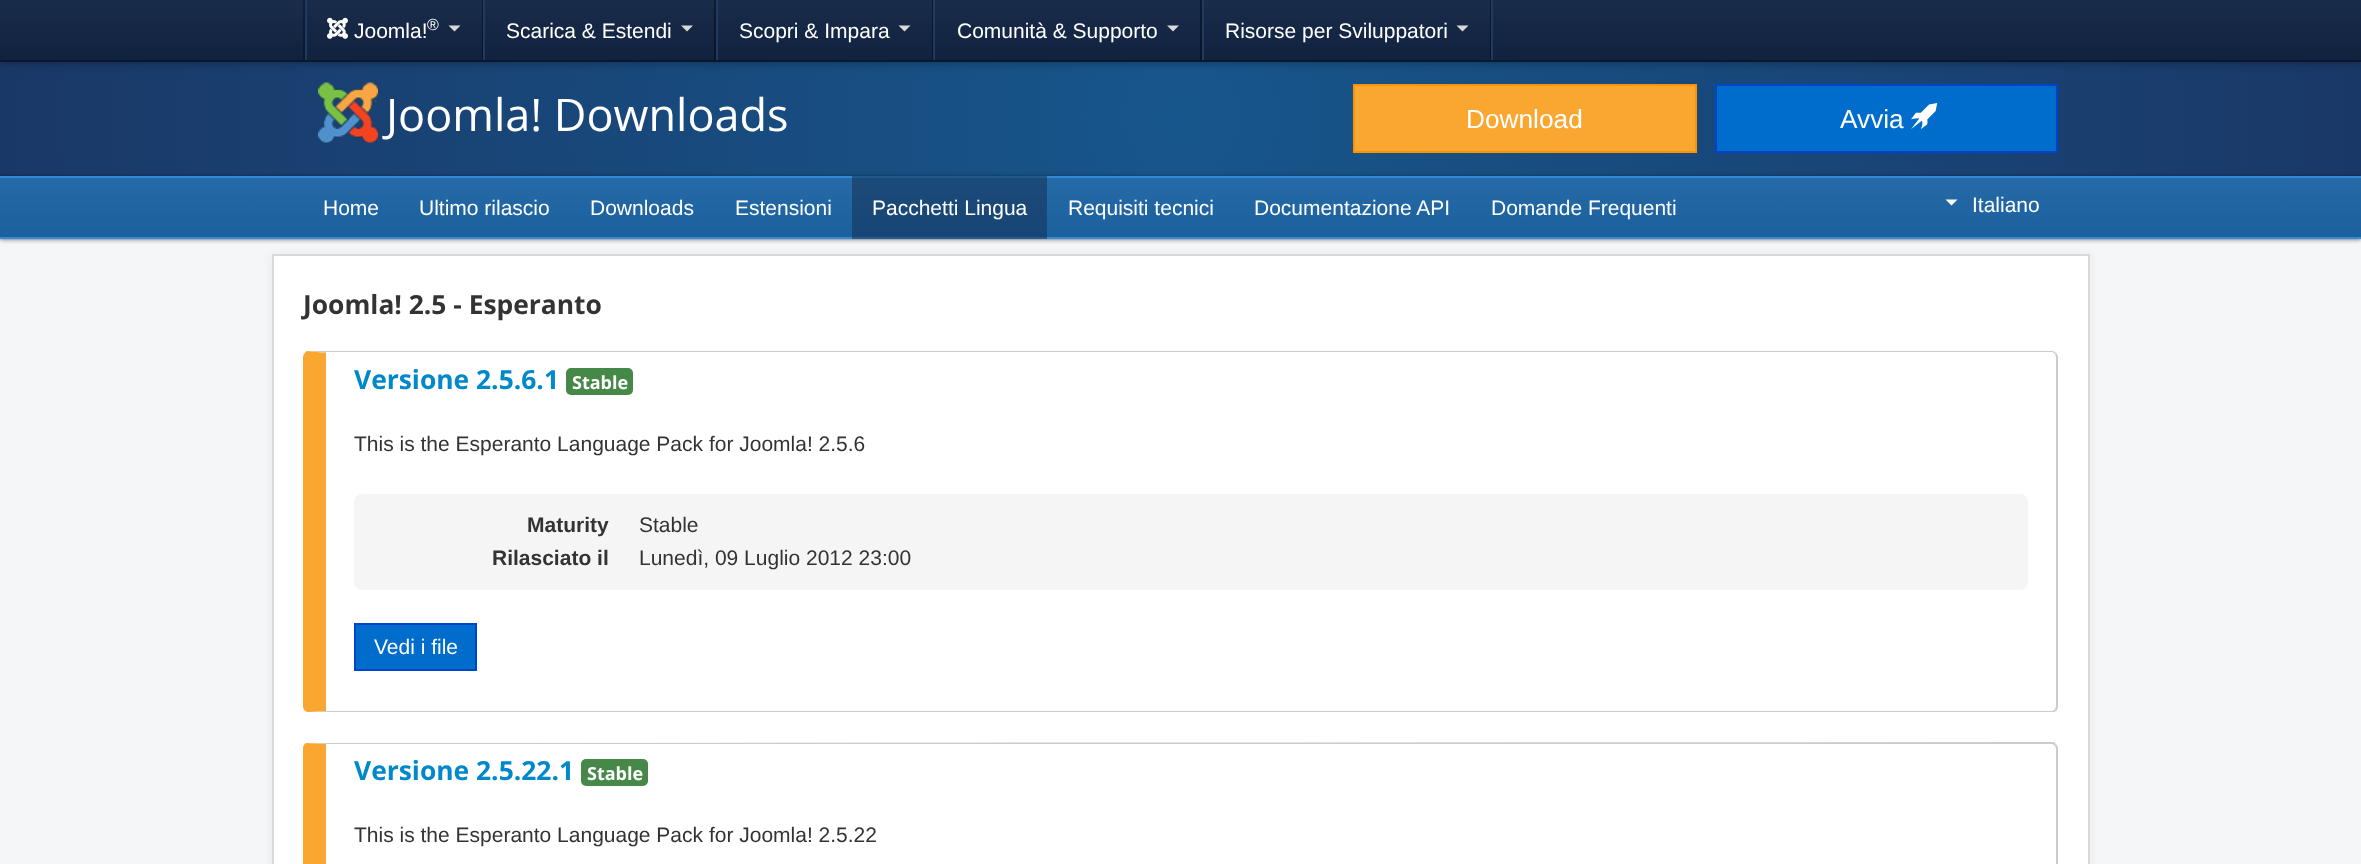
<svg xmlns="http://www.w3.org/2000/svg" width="2361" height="864">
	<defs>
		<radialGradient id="g1" gradientUnits="userSpaceOnUse" cx="1181" cy="116" r="1182"><stop offset="0" stop-color="#17568C" /><stop offset="1" stop-color="#1A3867" /></radialGradient>
		<linearGradient id="g2" gradientUnits="userSpaceOnUse" x1="1181" y1="0" x2="1181" y2="60"><stop offset="0" stop-color="#192C4A" /><stop offset="1" stop-color="#10223E" /></linearGradient>
		<linearGradient id="g3" gradientUnits="userSpaceOnUse" x1="1181" y1="0" x2="1181" y2="60"><stop offset="0" stop-color="#0F1A2C" /><stop offset="1" stop-color="#0A1425" /></linearGradient>
		<linearGradient id="g4" gradientUnits="userSpaceOnUse" x1="1181" y1="0" x2="1181" y2="60"><stop offset="0" stop-color="#121F34" /><stop offset="1" stop-color="#0B182B" /></linearGradient>
		<linearGradient id="g5" gradientUnits="userSpaceOnUse" x1="1181" y1="239" x2="1181" y2="176"><stop offset="0" stop-color="#1A609D" /><stop offset="1" stop-color="#266BA7" /></linearGradient>
	</defs>
	<rect width="100%" height="100%" fill="#F4F6F7" />
	<rect x="0" y="62" width="2361" height="114" fill="url(#g1)" />
	<rect x="0" y="2" width="2361" height="61" fill="#000000" fill-opacity="0.3" filter="blur(4px)" />
	<rect x="0" y="0" width="2361" height="60" fill="url(#g2)" />
	<rect x="1490" y="0" width="1" height="60" fill="url(#g3)" />
	<rect x="1200" y="0" width="2" height="60" fill="url(#g3)" />
	<rect x="932" y="0" width="1" height="60" fill="url(#g3)" />
	<rect x="714" y="0" width="2" height="60" fill="url(#g3)" />
	<rect x="303" y="0" width="2" height="60" fill="url(#g4)" />
	<rect x="482" y="0" width="1" height="60" fill="url(#g3)" />
	<rect x="0" y="60" width="2361" height="2" fill="#0B172A" />
	<rect x="305" y="0" width="2" height="60" fill="#1E3B63" />
	<rect x="483" y="0" width="2" height="60" fill="#1E3B63" />
	<image x="327" y="17" width="21" height="22" href="assets/img1.png" />
	<text x="354" y="38" font-family="Liberation Sans" font-size="21" fill="#FFFFFF">Joomla!</text>
	<text x="427" y="30" font-family="Liberation Sans" font-size="16" fill="#FFFFFF">®</text>
	<path d="M448.5 25.5H460.5L454.5 31.5Z" fill="#D9D9D9" />
	<rect x="716" y="0" width="2" height="60" fill="#1E3B63" />
	<text x="506" y="38" font-family="Liberation Sans" font-size="21" fill="#FFFFFF">Scarica &amp; Estendi</text>
	<path d="M681 25.5H693L687 31.5Z" fill="#D9D9D9" />
	<rect x="933" y="0" width="2" height="60" fill="#1E3B63" />
	<text x="739" y="38" font-family="Liberation Sans" font-size="21" fill="#FFFFFF">Scopri &amp; Impara</text>
	<path d="M898.5 25.5H910.5L904.5 31.5Z" fill="#D9D9D9" />
	<rect x="1202" y="0" width="2" height="60" fill="#1E3B63" />
	<text x="957" y="38" font-family="Liberation Sans" font-size="21" fill="#FFFFFF">Comunità &amp; Supporto</text>
	<path d="M1167 25.5H1179L1173 31.5Z" fill="#D9D9D9" />
	<rect x="1491" y="0" width="2" height="60" fill="#1E3B63" />
	<text x="1225" y="38" font-family="Liberation Sans" font-size="21" fill="#FFFFFF">Risorse per Sviluppatori</text>
	<path d="M1456.5 25.5H1468.5L1462.5 31.5Z" fill="#D9D9D9" />
	<image x="318" y="82" width="60" height="61" href="assets/img2.png" />
	<text x="386" y="131" font-family="Open Sans" font-size="45" fill="#FFFFFF">Joomla! Downloads</text>
	<rect x="1354" y="85" width="342" height="67" fill="#FAA732" stroke="#F89406" stroke-width="2" />
	<text x="1466" y="128" font-family="Liberation Sans" font-size="26.25" fill="#FFFFFF">Download</text>
	<rect x="1716" y="85" width="341" height="67" fill="#006DCC" stroke="#0044CC" stroke-width="2" />
	<text x="1840" y="128" font-family="Liberation Sans" font-size="26.25" fill="#FFFFFF">Avvia</text>
	<image x="1911" y="103" width="27" height="26" href="assets/img3.png" />
	<rect x="0" y="176" width="2361" height="63" fill="#000000" fill-opacity="0.2" filter="blur(1px)" />
	<rect x="0" y="177" width="2361" height="63" fill="#000000" fill-opacity="0.4" filter="blur(2px)" />
	<rect x="0" y="178" width="2361" height="59" fill="url(#g5)" />
	<rect x="0" y="237" width="2361" height="2" fill="#368AD8" />
	<rect x="0" y="176" width="2361" height="2" fill="#2F89D3" />
	<g font-family="Liberation Sans" font-size="21" fill="#FFFFFF">
		<text x="323" y="215">Home</text>
		<text x="419" y="215">Ultimo rilascio</text>
		<text x="590" y="215">Downloads</text>
		<text x="735" y="215">Estensioni</text>
	</g>
	<rect x="852" y="176" width="195" height="63" fill="#132A4C" fill-opacity="0.5" />
	<g font-family="Liberation Sans" font-size="21" fill="#FFFFFF">
		<text x="872" y="215">Pacchetti Lingua</text>
		<text x="1068" y="215">Requisiti tecnici</text>
		<text x="1254" y="215">Documentazione API</text>
		<text x="1491" y="215">Domande Frequenti</text>
	</g>
	<path d="M1945.5 199.5H1957.5L1951.5 205.5Z" fill="#FFFFFF" />
	<text x="1972" y="212" font-family="Liberation Sans" font-size="21" fill="#FFFFFF">Italiano</text>
	<rect x="272" y="254" width="1818" height="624" fill="#000000" fill-opacity="0.05" filter="blur(4.5px)" />
	<rect x="273" y="255" width="1816" height="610" fill="#FFFFFF" stroke="#D9D9D9" stroke-width="2" />
	<text x="303" y="314" font-family="Open Sans" font-size="26.4" font-weight="700" fill="#333333">Joomla! 2.5 - Esperanto</text>
	<path d="M309 351H307L326 353V352H2052C2053 352 2054 353 2055 354L2056 353C2055 352 2054 351 2052 351Z" fill="#CCCCCC" />
	<path d="M2058 706V357C2058 356 2057 354 2056 353L2055 354L2056 357V706L2055 709L2056 711C2057 710 2058 708 2058 706Z" fill="#CCCCCC" />
	<path d="M2056 711C2055 712 2053 712 2052 712H310L326 711H2052C2053 711 2054 710 2055 709Z" fill="#CCCCCC" />
	<path d="M303 357V706C303 710 306 712 309 712L326 711V353L307 351C305 352 303 355 303 357Z" fill="#FAA732" />
	<text x="354" y="389" font-family="Open Sans" font-size="26.4" font-weight="700" fill="#0088CC">Versione 2.5.6.1</text>
	<rect x="566" y="368" width="67" height="27" rx="5" fill="#468847" />
	<text x="572" y="389" font-family="Open Sans" font-size="18" font-weight="700" fill="#FFFFFF">Stable</text>
	<text x="354" y="451" font-family="Liberation Sans" font-size="21" fill="#333333">This is the Esperanto Language Pack for Joomla! 2.5.6</text>
	<rect x="354" y="494" width="1674" height="96" rx="8" fill="#F5F5F5" />
	<text x="527" y="532" font-family="Liberation Sans" font-size="21" font-weight="700" fill="#333333">Maturity</text>
	<text x="639" y="532" font-family="Liberation Sans" font-size="21" fill="#333333">Stable</text>
	<text x="492" y="565" font-family="Liberation Sans" font-size="21" font-weight="700" fill="#333333">Rilasciato il</text>
	<text x="639" y="565" font-family="Liberation Sans" font-size="21" fill="#333333">Lunedì, 09 Luglio 2012 23:00</text>
	<rect x="355" y="624" width="121" height="46" fill="#006DCC" stroke="#0044CC" stroke-width="2" />
	<text x="374" y="654" font-family="Liberation Sans" font-size="21" fill="#FFFFFF">Vedi i file</text>
	<path d="M326 744L306 743L2054 742L2056 744L2055 746C2054 745 2053 744 2052 744Z" fill="#CCCCCC" />
	<path d="M2058 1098V747L2056 744L2055 746L2056 748V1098L2055 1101L2056 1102C2057 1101 2058 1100 2058 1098Z" fill="#CCCCCC" />
	<path d="M303 748V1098C303 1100 305 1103 307 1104L333 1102H326V744L306 743C304 744 303 746 303 748Z" fill="#FAA732" />
	<text x="354" y="780" font-family="Open Sans" font-size="26.4" font-weight="700" fill="#0088CC">Versione 2.5.22.1</text>
	<rect x="581" y="759" width="67" height="27" rx="5" fill="#468847" />
	<text x="587" y="780" font-family="Open Sans" font-size="18" font-weight="700" fill="#FFFFFF">Stable</text>
	<text x="354" y="842" font-family="Liberation Sans" font-size="21" fill="#333333">This is the Esperanto Language Pack for Joomla! 2.5.22</text>
</svg>
